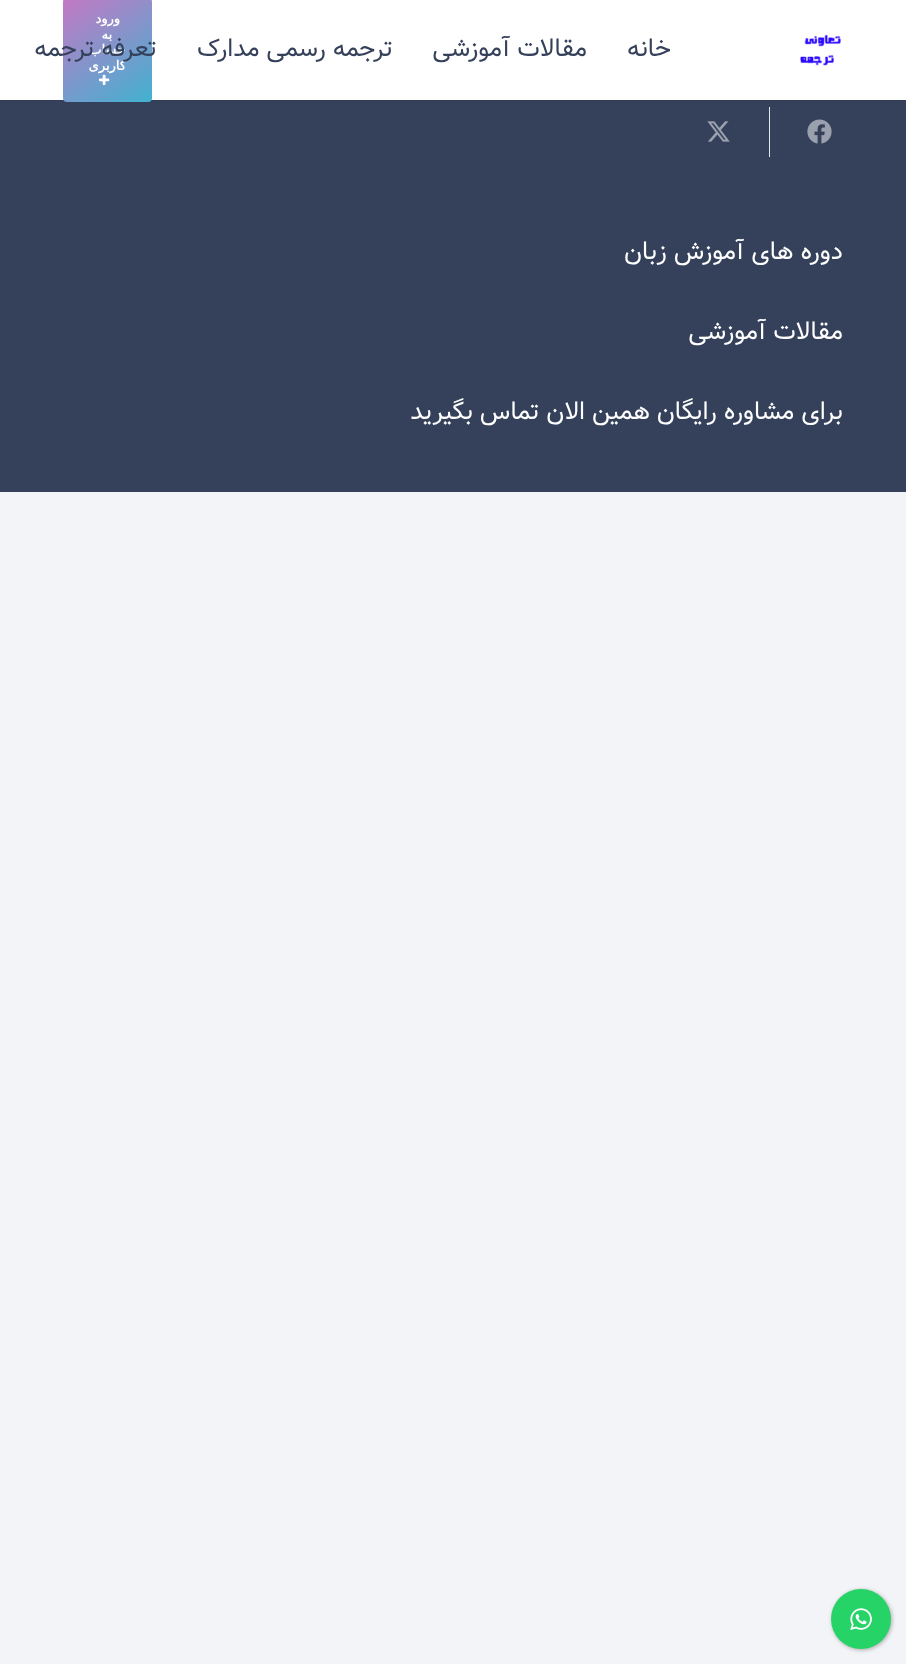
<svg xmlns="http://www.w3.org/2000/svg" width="906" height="1664">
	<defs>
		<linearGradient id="g1" gradientUnits="userSpaceOnUse" x1="68" y1="-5.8" x2="147" y2="106"><stop offset="0" stop-color="#C478C4" /><stop offset="1" stop-color="#41B2D1" /></linearGradient>
	</defs>
	<rect width="100%" height="100%" fill="#F2F4F7" />
	<rect x="0" y="100" width="906" height="1" fill="#313C54" />
	<rect x="0" y="0" width="906" height="100" fill="#FFFFFF" />
	<image x="800" y="34" width="41" height="32" href="assets/img1.png" />
	<rect x="0" y="101" width="906" height="391" fill="#35415B" />
	<rect x="63" y="-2" width="89" height="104" rx="4" fill="url(#g1)" />
	<g font-family="DejaVu Sans" font-size="13" font-weight="700" direction="rtl" fill="#FFFFFF">
		<text x="120" y="23">ورود</text>
		<text x="112" y="39">به</text>
		<text x="125" y="54">حساب</text>
		<text x="126" y="70">کاربری</text>
	</g>
	<image x="99" y="74" width="11" height="11" href="assets/img2.png" />
	<g font-family="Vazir" font-size="25" direction="rtl" fill="#35415B">
		<text x="671" y="56">خانه</text>
		<text x="587" y="56">مقالات آموزشی</text>
		<text x="393" y="56">ترجمه رسمی مدارک</text>
		<text x="157" y="56">تعرفه ترجمه</text>
	</g>
	<rect x="769" y="107" width="1" height="50" fill="#E3E7F0" />
	<image x="807" y="119" width="25" height="25" href="assets/img3.png" />
	<image x="707" y="121" width="23" height="21" href="assets/img4.png" />
	<g font-family="Vazir" font-size="25" direction="rtl" fill="#FFFFFF">
		<text x="843" y="259">دوره های آموزش زبان</text>
		<text x="843" y="339">مقالات آموزشی</text>
		<text x="843" y="419">برای مشاوره رایگان همین الان تماس بگیرید</text>
	</g>
	<rect x="832" y="1590" width="60" height="60" rx="30" fill="#000000" fill-opacity="0.3" filter="blur(2px)" />
	<circle cx="861" cy="1619" r="30" fill="#25D366" />
	<image x="850" y="1608" width="22" height="22" href="assets/img5.png" />
</svg>
